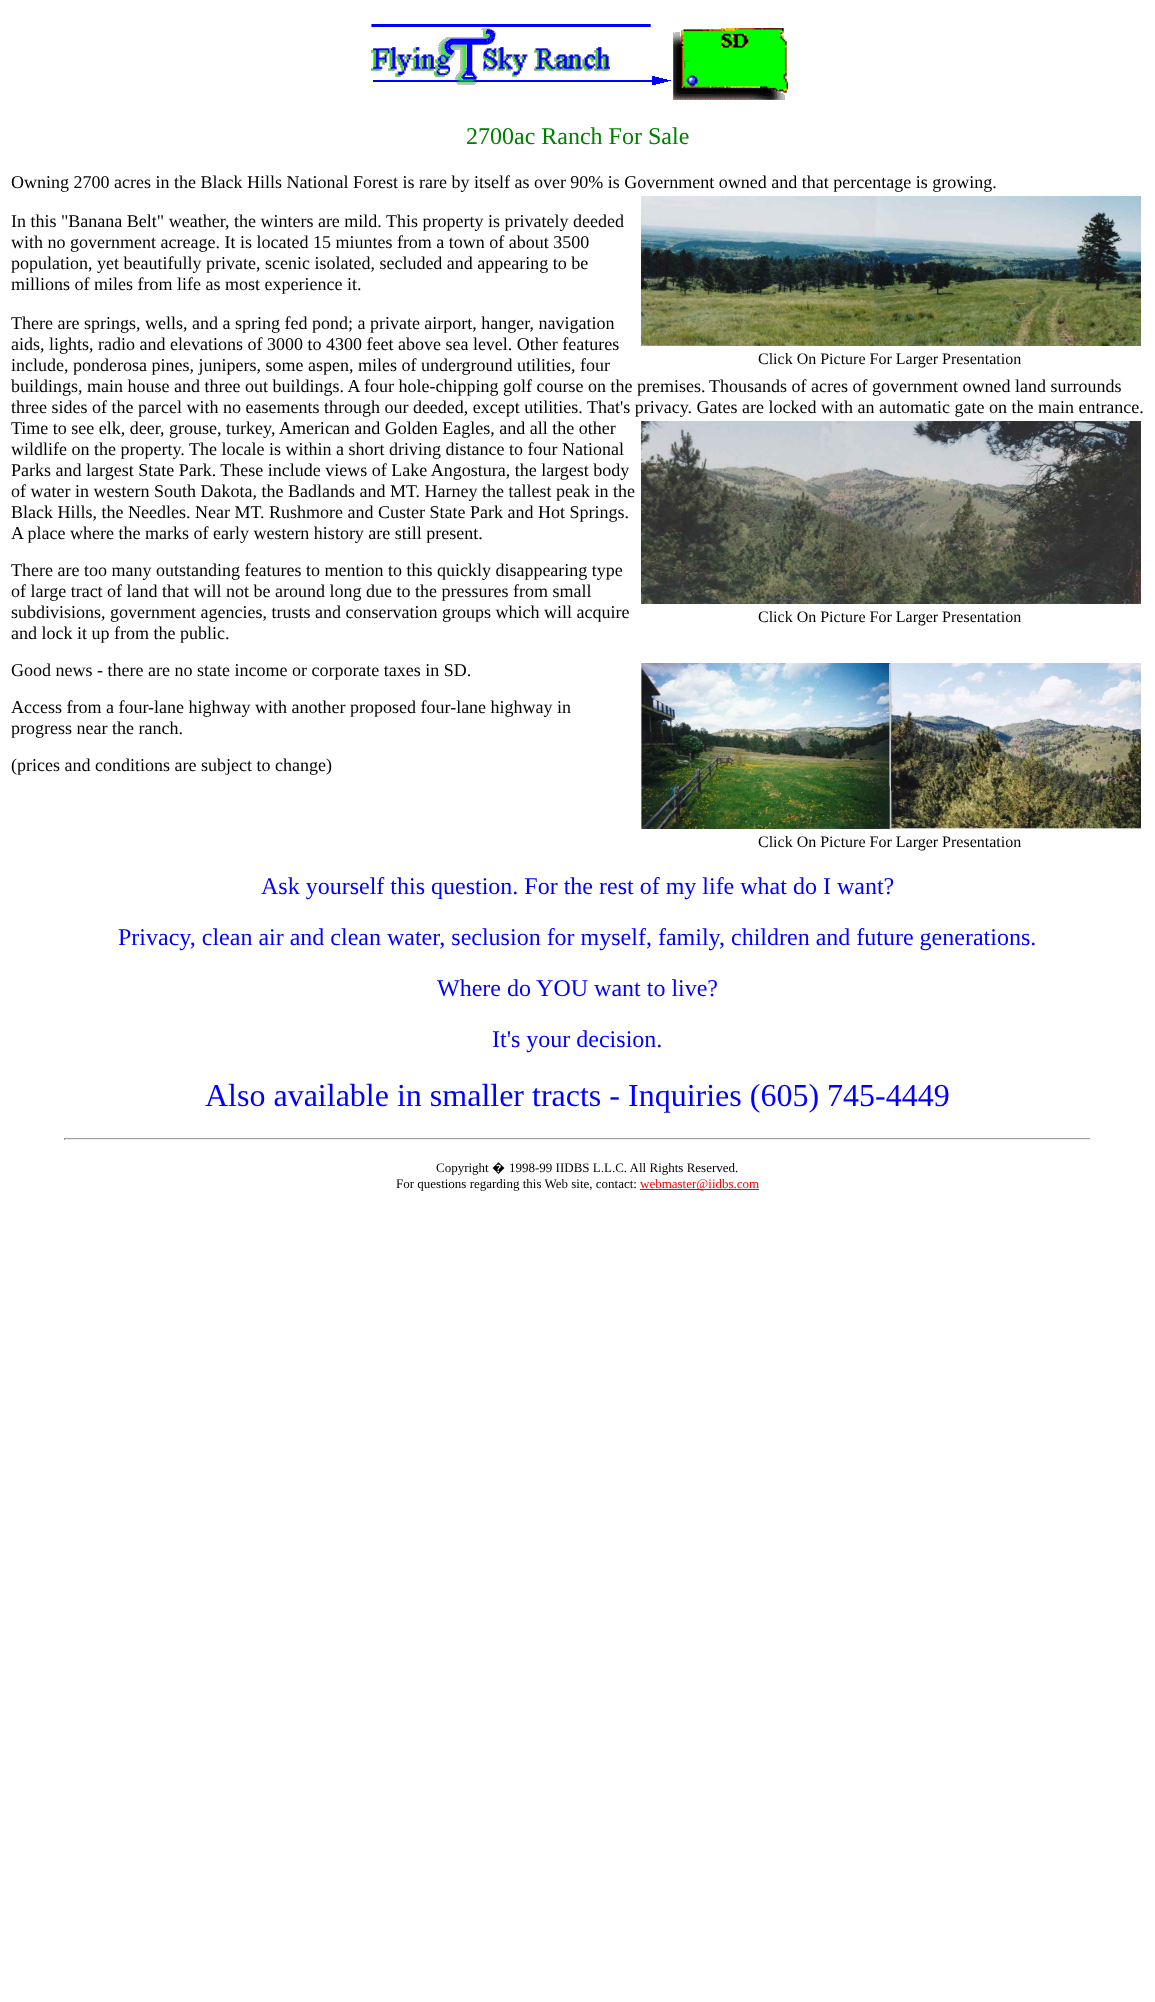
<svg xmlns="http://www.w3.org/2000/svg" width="1155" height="2002">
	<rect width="100%" height="100%" fill="#FFFFFF" />
	<image x="371" y="24" width="417" height="76" href="assets/img1.png" />
	<text x="466" y="144" font-family="Liberation Serif" font-size="24" fill="#008000">2700ac Ranch For Sale</text>
	<g font-family="Liberation Serif" font-size="18" fill="#000000">
		<text x="11" y="188">Owning 2700 acres in the Black Hills National Forest is rare by itself as over 90% is Government owned and that percentage is growing.</text>
		<text x="11" y="227">In this "Banana Belt" weather, the winters are mild. This property is privately deeded</text>
		<text x="11" y="248">with no government acreage. It is located 15 miuntes from a town of about 3500</text>
		<text x="11" y="269">population, yet beautifully private, scenic isolated, secluded and appearing to be</text>
		<text x="11" y="290">millions of miles from life as most experience it.</text>
	</g>
	<image x="641" y="196" width="500" height="150" href="assets/img2.png" />
	<text x="758" y="364" font-family="Liberation Serif" font-size="16" fill="#000000">Click On Picture For Larger Presentation</text>
	<g font-family="Liberation Serif" font-size="18" fill="#000000">
		<text x="11" y="329">There are springs, wells, and a spring fed pond; a private airport, hanger, navigation</text>
		<text x="11" y="350">aids, lights, radio and elevations of 3000 to 4300 feet above sea level. Other features</text>
		<text x="11" y="371">include, ponderosa pines, junipers, some aspen, miles of underground utilities, four</text>
		<text x="709" y="392">Thousands of acres of government owned land surrounds</text>
		<text x="11" y="413">three sides of the parcel with no easements through our deeded, except utilities. That's privacy. Gates are locked with an automatic gate on the main entrance.</text>
		<text x="11" y="434">Time to see elk, deer, grouse, turkey, American and Golden Eagles, and all the other</text>
		<text x="11" y="455">wildlife on the property.</text>
	</g>
	<image x="641" y="421" width="500" height="183" href="assets/img3.png" />
	<text x="758" y="622" font-family="Liberation Serif" font-size="16" fill="#000000">Click On Picture For Larger Presentation</text>
	<g font-family="Liberation Serif" font-size="18" fill="#000000">
		<text x="11" y="392">buildings, main house and three out buildings. A four hole-chipping golf course on the premises.</text>
		<text x="189" y="455">The locale is within a short driving distance to four National</text>
		<text x="11" y="476">Parks and largest State Park. These include views of Lake Angostura, the largest body</text>
		<text x="11" y="497">of water in western South Dakota, the Badlands and MT. Harney the tallest peak in the</text>
		<text x="11" y="518">Black Hills, the Needles. Near MT. Rushmore and Custer State Park and Hot Springs.</text>
		<text x="11" y="539">A place where the marks of early western history are still present.</text>
		<text x="11" y="576">There are too many outstanding features to mention to this quickly disappearing type</text>
		<text x="11" y="597">of large tract of land that will not be around long due to the pressures from small</text>
		<text x="11" y="618">subdivisions, government agencies, trusts and conservation groups which will acquire</text>
		<text x="11" y="639">and lock it up from the public.</text>
		<text x="11" y="676">Good news - there are no state income or corporate taxes in SD.</text>
	</g>
	<image x="641" y="663" width="500" height="166" href="assets/img4.png" />
	<text x="758" y="847" font-family="Liberation Serif" font-size="16" fill="#000000">Click On Picture For Larger Presentation</text>
	<g font-family="Liberation Serif" font-size="18" fill="#000000">
		<text x="11" y="713">Access from a four-lane highway with another proposed four-lane highway in</text>
		<text x="11" y="734">progress near the ranch.</text>
		<text x="11" y="771">(prices and conditions are subject to change)</text>
	</g>
	<g font-family="Liberation Serif" font-size="24" fill="#0000FF">
		<text x="261" y="894">Ask yourself this question. For the rest of my life what do I want?</text>
		<text x="118" y="945">Privacy, clean air and clean water, seclusion for myself, family, children and future generations.</text>
		<text x="437" y="996">Where do YOU want to live?</text>
		<text x="492" y="1047">It's your decision.</text>
	</g>
	<text x="205" y="1106" font-family="Liberation Serif" font-size="32" fill="#0000FF">Also available in smaller tracts - Inquiries (605) 745-4449</text>
	<rect x="64" y="1138" width="1027" height="1" fill="#9F9F9F" />
	<rect x="1090" y="1138" width="1" height="2" fill="#EEEEEE" />
	<rect x="64" y="1139" width="1027" height="1" fill="#EEEEEE" />
	<rect x="64" y="1138" width="1" height="2" fill="#9F9F9F" />
	<text x="436" y="1172" font-family="Liberation Serif" font-size="13" fill="#000000">Copyright</text>
	<text x="492" y="1172" font-family="Noto Sans" font-size="13" fill="#000000">�</text>
	<g font-family="Liberation Serif" font-size="13" fill="#000000">
		<text x="509" y="1172">1998-99 IIDBS L.L.C. All Rights Reserved.</text>
		<text x="396" y="1188">For questions regarding this Web site, contact:</text>
	</g>
	<rect x="640" y="1189" width="119" height="1" fill="#FF0000" />
	<text x="640" y="1188" font-family="Liberation Serif" font-size="13" fill="#FF0000">webmaster@iidbs.com</text>
</svg>
